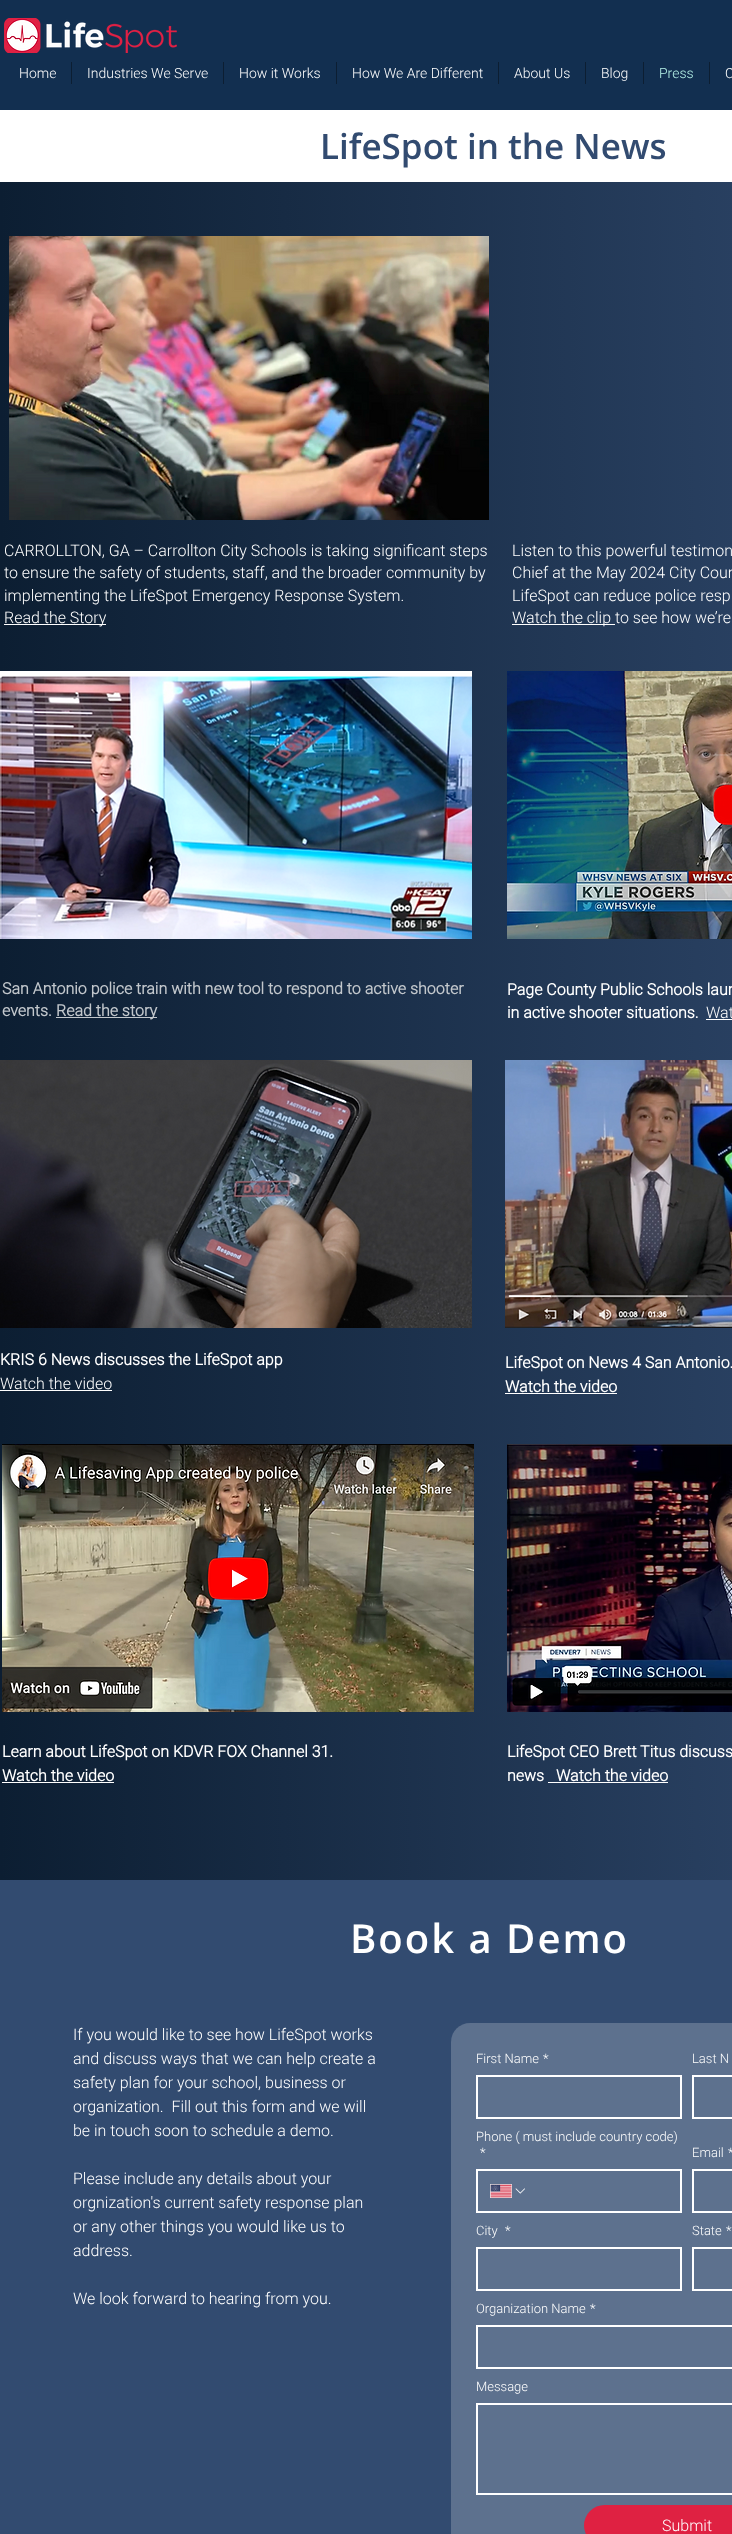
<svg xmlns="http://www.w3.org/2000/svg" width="732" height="2534">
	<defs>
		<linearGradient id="g1" gradientUnits="userSpaceOnUse" x1="0" y1="1031" x2="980" y2="1031"><stop offset="0" stop-color="#0C1E32" /><stop offset="1" stop-color="#324B70" /></linearGradient>
	</defs>
	<rect width="100%" height="100%" fill="#FFFFFF" />
	<rect x="0" y="0" width="732" height="110" fill="#122F50" />
	<image x="4" y="18" width="173" height="35" href="assets/img1.png" />
	<text x="19" y="78" font-family="Roboto" font-size="14" font-weight="300" fill="#FFFFFF">Home</text>
	<rect x="71" y="62" width="1" height="22" fill="#0C1E32" />
	<text x="87" y="78" font-family="Roboto" font-size="14" font-weight="300" fill="#FFFFFF">Industries We Serve</text>
	<rect x="223" y="62" width="1" height="22" fill="#0C1E32" />
	<text x="239" y="78" font-family="Roboto" font-size="14" font-weight="300" fill="#FFFFFF">How it Works</text>
	<rect x="336" y="62" width="1" height="22" fill="#0C1E32" />
	<text x="352" y="78" font-family="Roboto" font-size="14" font-weight="300" fill="#FFFFFF">How We Are Different</text>
	<rect x="498" y="62" width="1" height="22" fill="#0C1E32" />
	<text x="514" y="78" font-family="Roboto" font-size="14" font-weight="300" fill="#FFFFFF">About Us</text>
	<rect x="585" y="62" width="1" height="22" fill="#0C1E32" />
	<text x="601" y="78" font-family="Roboto" font-size="14" font-weight="300" fill="#FFFFFF">Blog</text>
	<rect x="643" y="62" width="1" height="22" fill="#0C1E32" />
	<text x="659" y="78" font-family="Roboto" font-size="14" font-weight="300" fill="#B6F3E8">Press</text>
	<rect x="709" y="62" width="1" height="22" fill="#0C1E32" />
	<text x="725" y="78" font-family="Roboto" font-size="14" font-weight="300" fill="#FFFFFF">C</text>
	<text x="320" y="159" font-family="Open Sans" font-size="35" font-weight="600" fill="#324B70">LifeSpot in the News</text>
	<rect x="0" y="182" width="732" height="1698" fill="url(#g1)" />
	<image x="9" y="236" width="480" height="284" href="assets/img2.png" />
	<g font-family="Roboto" font-size="16" font-weight="300" fill="#FFFFFF">
		<text x="4" y="556">CARROLLTON, GA – Carrollton City Schools is taking significant steps</text>
		<text x="4" y="578">to ensure the safety of students, staff, and the broader community by</text>
		<text x="4" y="601">implementing the LifeSpot Emergency Response System.</text>
	</g>
	<rect x="4" y="624" width="102" height="1" fill="#FFFFFF" />
	<g font-family="Roboto" font-size="16" font-weight="300" fill="#FFFFFF">
		<text x="4" y="623">Read the Story</text>
		<text x="512" y="556">Listen to this powerful testimon</text>
		<text x="512" y="578">Chief at the May 2024 City Coun</text>
		<text x="512" y="601">LifeSpot can reduce police resp</text>
	</g>
	<rect x="512" y="624" width="103" height="1" fill="#FFFFFF" />
	<text x="512" y="623" font-family="Roboto" font-size="16" font-weight="300" fill="#FFFFFF">Watch the clip to see how we’re</text>
	<image x="0" y="671" width="472" height="268" href="assets/img3.png" />
	<image x="507" y="671" width="225" height="268" href="assets/img4.png" />
	<g font-family="Roboto" font-size="16" font-weight="700" fill="#C2C7CC">
		<text x="2" y="994">San Antonio police train with new tool to respond to active shooter</text>
		<text x="2" y="1016">events.</text>
	</g>
	<rect x="56" y="1017" width="101" height="1" fill="#C2C7CC" />
	<text x="56" y="1016" font-family="Roboto" font-size="16" font-weight="700" fill="#C2C7CC">Read the story</text>
	<g font-family="Roboto" font-size="16" font-weight="700" fill="#FFFFFF">
		<text x="507" y="995">Page County Public Schools laun</text>
		<text x="507" y="1018">in active shooter situations.</text>
	</g>
	<text x="706" y="1018" font-family="Roboto" font-size="16" font-weight="300" fill="#FFFFFF">Wat</text>
	<rect x="706" y="1019" width="26" height="1" fill="#FFFFFF" />
	<image x="0" y="1060" width="472" height="268" href="assets/img5.png" />
	<image x="505" y="1060" width="227" height="268" href="assets/img6.png" />
	<text x="0" y="1365" font-family="Roboto" font-size="16" font-weight="700" fill="#FFFFFF">KRIS 6 News discusses the LifeSpot app</text>
	<text x="0" y="1389" font-family="Roboto" font-size="16" font-weight="300" fill="#FFFFFF">Watch the video</text>
	<rect x="0" y="1390" width="112" height="1" fill="#FFFFFF" />
	<g font-family="Roboto" font-size="16" font-weight="700" fill="#FFFFFF">
		<text x="505" y="1368">LifeSpot on News 4 San Antonio.</text>
		<text x="505" y="1392">Watch the video</text>
	</g>
	<rect x="505" y="1393" width="112" height="1" fill="#FFFFFF" />
	<image x="2" y="1444" width="472" height="268" href="assets/img7.png" />
	<image x="507" y="1444" width="225" height="268" href="assets/img8.png" />
	<g font-family="Roboto" font-size="16" font-weight="700" fill="#FFFFFF">
		<text x="2" y="1757">Learn about LifeSpot on KDVR FOX Channel 31.</text>
		<text x="2" y="1781">Watch the video</text>
	</g>
	<rect x="2" y="1782" width="112" height="1" fill="#FFFFFF" />
	<g font-family="Roboto" font-size="16" font-weight="700" fill="#FFFFFF">
		<text x="507" y="1757">LifeSpot CEO Brett Titus discuss</text>
		<text x="507" y="1781">news</text>
		<text x="556" y="1781">Watch the video</text>
	</g>
	<rect x="548" y="1782" width="120" height="1" fill="#FFFFFF" />
	<rect x="0" y="1880" width="732" height="654" fill="#324B70" />
	<text x="350" y="1953" font-family="Open Sans" font-size="40" font-weight="600" letter-spacing="2" fill="#FFFFFF">Book a Demo</text>
	<g font-family="Roboto" font-size="16" font-weight="300" fill="#FFFFFF">
		<text x="73" y="2040">If you would like to see how LifeSpot works</text>
		<text x="73" y="2064">and discuss ways that we can help create a</text>
		<text x="73" y="2088">safety plan for your school, business or</text>
		<text x="73" y="2112" xml:space="preserve">organization.  Fill out this form and we will</text>
		<text x="73" y="2136">be in touch soon to schedule a demo.</text>
		<text x="73" y="2184">Please include any details about your</text>
		<text x="73" y="2208">orgnization's current safety response plan</text>
		<text x="73" y="2232">or any other things you would like us to</text>
		<text x="73" y="2256">address.</text>
		<text x="73" y="2304">We look forward to hearing from you.</text>
	</g>
	<rect x="451" y="2023" width="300" height="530" rx="19" fill="#5D718E" />
	<g font-family="Roboto" font-size="13" font-weight="300" fill="#FFFFFF">
		<text x="476" y="2063">First Name</text>
		<text x="543" y="2063">*</text>
		<text x="692" y="2063">Last N</text>
	</g>
	<rect x="477" y="2076" width="204" height="42" fill="none" stroke="#FFFFFF" stroke-width="2" />
	<rect x="693" y="2076" width="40" height="42" fill="none" stroke="#FFFFFF" stroke-width="2" />
	<g font-family="Roboto" font-size="13" font-weight="300" fill="#FFFFFF">
		<text x="476" y="2141">Phone ( must include country code)</text>
		<text x="480" y="2157">*</text>
		<text x="692" y="2157">Email</text>
		<text x="728" y="2157">*</text>
	</g>
	<rect x="477" y="2170" width="204" height="42" fill="none" stroke="#FFFFFF" stroke-width="2" />
	<image x="490" y="2184" width="22" height="14" href="assets/img9.png" />
	<image x="515" y="2188" width="10" height="6" href="assets/img10.png" />
	<rect x="693" y="2170" width="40" height="42" fill="none" stroke="#FFFFFF" stroke-width="2" />
	<g font-family="Roboto" font-size="13" font-weight="300" fill="#FFFFFF">
		<text x="476" y="2235">City</text>
		<text x="505" y="2235">*</text>
		<text x="692" y="2235">State</text>
		<text x="726" y="2235">*</text>
	</g>
	<rect x="477" y="2248" width="204" height="42" fill="none" stroke="#FFFFFF" stroke-width="2" />
	<rect x="693" y="2248" width="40" height="42" fill="none" stroke="#FFFFFF" stroke-width="2" />
	<g font-family="Roboto" font-size="13" font-weight="300" fill="#FFFFFF">
		<text x="476" y="2313">Organization Name</text>
		<text x="590" y="2313">*</text>
	</g>
	<rect x="477" y="2326" width="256" height="42" fill="none" stroke="#FFFFFF" stroke-width="2" />
	<text x="476" y="2391" font-family="Roboto" font-size="13" font-weight="300" fill="#FFFFFF">Message</text>
	<rect x="477" y="2404" width="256" height="90" fill="none" stroke="#FFFFFF" stroke-width="2" />
	<rect x="584" y="2505" width="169" height="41" rx="20.5" fill="#DF2142" />
	<text x="662" y="2531" font-family="Roboto" font-size="16" font-weight="300" fill="#FFFFFF">Submit</text>
</svg>
